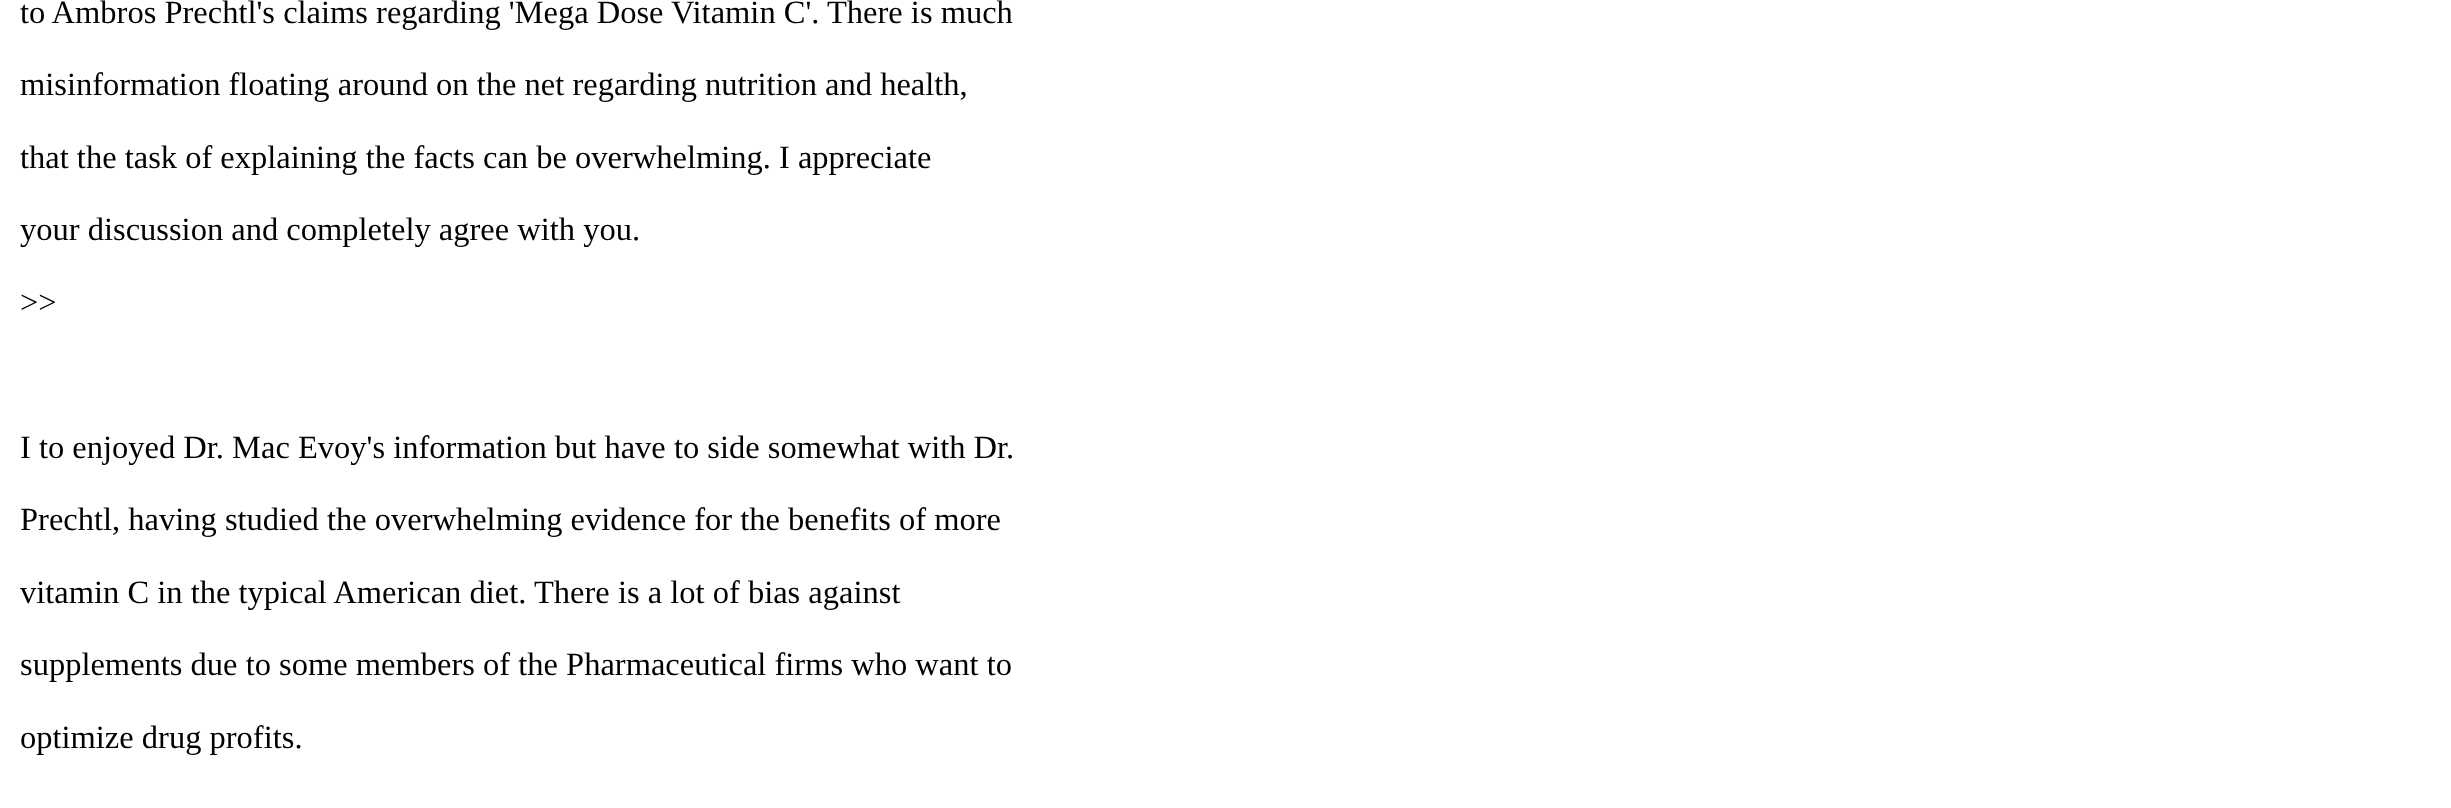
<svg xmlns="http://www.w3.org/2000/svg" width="2451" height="808">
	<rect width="100%" height="100%" fill="#FFFFFF" />
	<g font-family="Liberation Serif" font-size="32.5" fill="#000000">
		<text x="20" y="23">to Ambros Prechtl's claims regarding 'Mega Dose Vitamin C'. There is much</text>
		<text x="20" y="95">misinformation floating around on the net regarding nutrition and health,</text>
		<text x="20" y="168">that the task of explaining the facts can be overwhelming. I appreciate</text>
		<text x="20" y="240">your discussion and completely agree with you.</text>
		<text x="20" y="313">&gt;&gt;</text>
		<text x="20" y="458">I to enjoyed Dr. Mac Evoy's information but have to side somewhat with Dr.</text>
		<text x="20" y="530">Prechtl, having studied the overwhelming evidence for the benefits of more</text>
		<text x="20" y="603">vitamin C in the typical American diet.</text>
		<text x="534" y="603">There is a lot of bias against</text>
		<text x="20" y="675">supplements due to some members of the Pharmaceutical firms who want to</text>
		<text x="20" y="748">optimize drug profits.</text>
	</g>
</svg>
